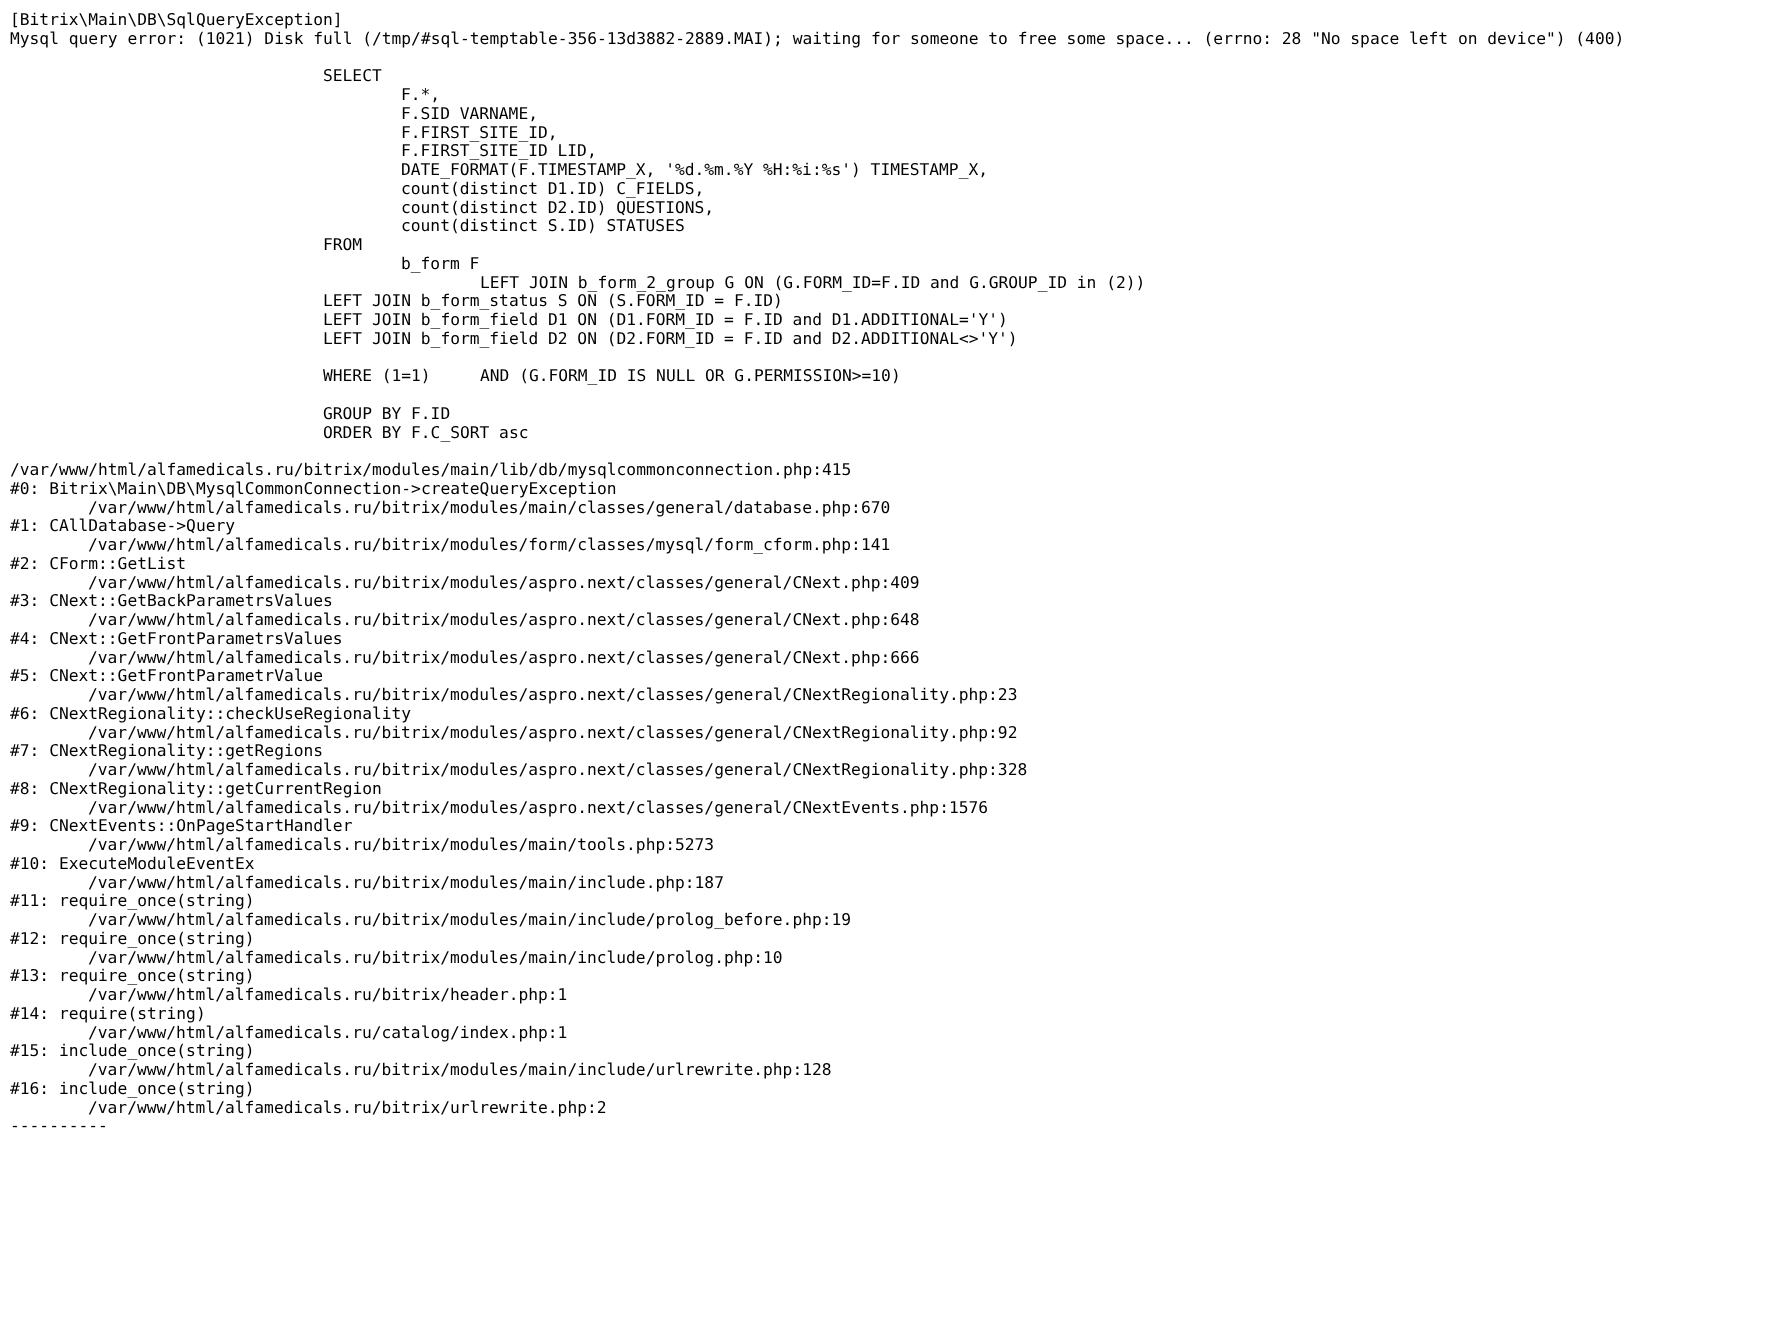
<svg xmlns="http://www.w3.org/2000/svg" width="1766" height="1319">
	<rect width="100%" height="100%" fill="#FFFFFF" />
	<g font-family="DejaVu Sans Mono" font-size="16.25" fill="#000000">
		<text x="10" y="25">[Bitrix\Main\DB\SqlQueryException]</text>
		<text x="10" y="44">Mysql query error: (1021) Disk full (/tmp/#sql-temptable-356-13d3882-2889.MAI); waiting for someone to free some space... (errno: 28 "No space left on device") (400)</text>
		<text x="323" y="81">SELECT</text>
		<text x="401" y="100">F.*,</text>
		<text x="401" y="119">F.SID VARNAME,</text>
		<text x="401" y="138">F.FIRST_SITE_ID,</text>
		<text x="401" y="156">F.FIRST_SITE_ID LID,</text>
		<text x="401" y="175">DATE_FORMAT(F.TIMESTAMP_X, '%d.%m.%Y %H:%i:%s') TIMESTAMP_X,</text>
		<text x="401" y="194">count(distinct D1.ID) C_FIELDS,</text>
		<text x="401" y="213">count(distinct D2.ID) QUESTIONS,</text>
		<text x="401" y="231">count(distinct S.ID) STATUSES</text>
		<text x="323" y="250">FROM</text>
		<text x="401" y="269">b_form F</text>
		<text x="480" y="288">LEFT JOIN b_form_2_group G ON (G.FORM_ID=F.ID and G.GROUP_ID in (2))</text>
		<text x="323" y="306">LEFT JOIN b_form_status S ON (S.FORM_ID = F.ID)</text>
		<text x="323" y="325">LEFT JOIN b_form_field D1 ON (D1.FORM_ID = F.ID and D1.ADDITIONAL='Y')</text>
		<text x="323" y="344">LEFT JOIN b_form_field D2 ON (D2.FORM_ID = F.ID and D2.ADDITIONAL&lt;&gt;'Y')</text>
		<text x="323" y="381">WHERE (1=1)</text>
		<text x="480" y="381">AND (G.FORM_ID IS NULL OR G.PERMISSION&gt;=10)</text>
		<text x="323" y="419">GROUP BY F.ID</text>
		<text x="323" y="438">ORDER BY F.C_SORT asc</text>
		<text x="10" y="475">/var/www/html/alfamedicals.ru/bitrix/modules/main/lib/db/mysqlcommonconnection.php:415</text>
		<text x="10" y="494">#0: Bitrix\Main\DB\MysqlCommonConnection-&gt;createQueryException</text>
		<text x="88" y="513">/var/www/html/alfamedicals.ru/bitrix/modules/main/classes/general/database.php:670</text>
		<text x="10" y="531">#1: CAllDatabase-&gt;Query</text>
		<text x="88" y="550">/var/www/html/alfamedicals.ru/bitrix/modules/form/classes/mysql/form_cform.php:141</text>
		<text x="10" y="569">#2: CForm::GetList</text>
		<text x="88" y="588">/var/www/html/alfamedicals.ru/bitrix/modules/aspro.next/classes/general/CNext.php:409</text>
		<text x="10" y="606">#3: CNext::GetBackParametrsValues</text>
		<text x="88" y="625">/var/www/html/alfamedicals.ru/bitrix/modules/aspro.next/classes/general/CNext.php:648</text>
		<text x="10" y="644">#4: CNext::GetFrontParametrsValues</text>
		<text x="88" y="663">/var/www/html/alfamedicals.ru/bitrix/modules/aspro.next/classes/general/CNext.php:666</text>
		<text x="10" y="681">#5: CNext::GetFrontParametrValue</text>
		<text x="88" y="700">/var/www/html/alfamedicals.ru/bitrix/modules/aspro.next/classes/general/CNextRegionality.php:23</text>
		<text x="10" y="719">#6: CNextRegionality::checkUseRegionality</text>
		<text x="88" y="738">/var/www/html/alfamedicals.ru/bitrix/modules/aspro.next/classes/general/CNextRegionality.php:92</text>
		<text x="10" y="756">#7: CNextRegionality::getRegions</text>
		<text x="88" y="775">/var/www/html/alfamedicals.ru/bitrix/modules/aspro.next/classes/general/CNextRegionality.php:328</text>
		<text x="10" y="794">#8: CNextRegionality::getCurrentRegion</text>
		<text x="88" y="813">/var/www/html/alfamedicals.ru/bitrix/modules/aspro.next/classes/general/CNextEvents.php:1576</text>
		<text x="10" y="831">#9: CNextEvents::OnPageStartHandler</text>
		<text x="88" y="850">/var/www/html/alfamedicals.ru/bitrix/modules/main/tools.php:5273</text>
		<text x="10" y="869">#10: ExecuteModuleEventEx</text>
		<text x="88" y="888">/var/www/html/alfamedicals.ru/bitrix/modules/main/include.php:187</text>
		<text x="10" y="906">#11: require_once(string)</text>
		<text x="88" y="925">/var/www/html/alfamedicals.ru/bitrix/modules/main/include/prolog_before.php:19</text>
		<text x="10" y="944">#12: require_once(string)</text>
		<text x="88" y="963">/var/www/html/alfamedicals.ru/bitrix/modules/main/include/prolog.php:10</text>
		<text x="10" y="981">#13: require_once(string)</text>
		<text x="88" y="1000">/var/www/html/alfamedicals.ru/bitrix/header.php:1</text>
		<text x="10" y="1019">#14: require(string)</text>
		<text x="88" y="1038">/var/www/html/alfamedicals.ru/catalog/index.php:1</text>
		<text x="10" y="1056">#15: include_once(string)</text>
		<text x="88" y="1075">/var/www/html/alfamedicals.ru/bitrix/modules/main/include/urlrewrite.php:128</text>
		<text x="10" y="1094">#16: include_once(string)</text>
		<text x="88" y="1113">/var/www/html/alfamedicals.ru/bitrix/urlrewrite.php:2</text>
		<text x="10" y="1131">----------</text>
	</g>
</svg>
